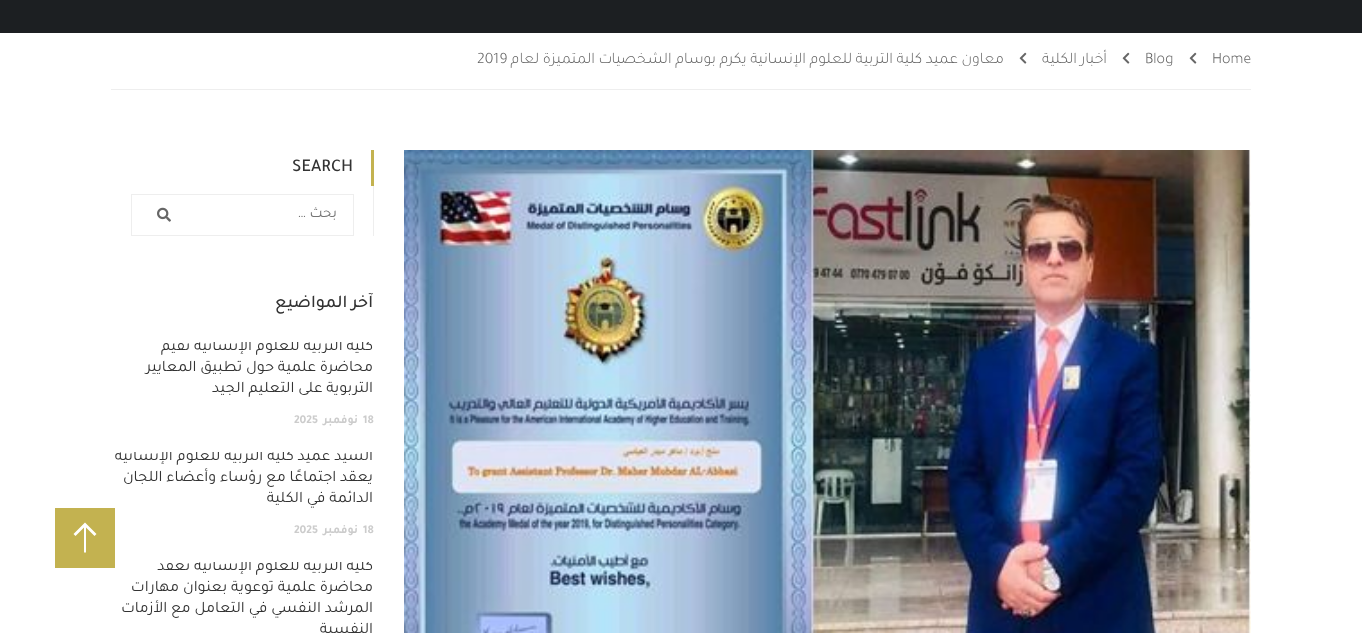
<svg xmlns="http://www.w3.org/2000/svg" width="1362" height="633">
	<defs>
		<clipPath id="clip1"><rect x="111" y="342" width="263" height="85" /></clipPath>
		<clipPath id="clip2"><rect x="111" y="452" width="263" height="85" /></clipPath>
		<clipPath id="clip3"><rect x="111" y="562" width="263" height="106" /></clipPath>
	</defs>
	<rect width="100%" height="100%" fill="#FFFFFF" />
	<rect x="0" y="0" width="1362" height="33" fill="#1C1F22" />
	<rect x="111" y="89" width="1140" height="1" fill="#EEEEEE" />
	<text x="1212" y="63" font-family="Tajawal" font-size="16" font-weight="300" fill="#666666">Home</text>
	<image x="1189" y="52" width="8" height="12" href="assets/img1.png" />
	<text x="1145" y="63" font-family="Tajawal" font-size="16" font-weight="300" fill="#666666">Blog</text>
	<image x="1122" y="52" width="8" height="12" href="assets/img1.png" />
	<text x="1107" y="63" font-family="Tajawal" font-size="16" font-weight="300" direction="rtl" fill="#666666">أخبار الكلية</text>
	<image x="1019" y="52" width="8" height="12" href="assets/img1.png" />
	<text x="1004" y="63" font-family="Tajawal" font-size="16" font-weight="300" direction="rtl" fill="#666666">معاون عميد كلية التربية للعلوم الإنسانية يكرم بوسام الشخصيات المتميزة لعام</text>
	<text x="477" y="63" font-family="Tajawal" font-size="16" font-weight="300" fill="#666666">2019</text>
	<image x="404" y="150" width="847" height="483" href="assets/img2.png" />
	<rect x="371" y="150" width="3" height="36" fill="#C3B250" />
	<text x="292" y="171" font-family="Tajawal" font-size="18" font-weight="500" fill="#333333">SEARCH</text>
	<rect x="373" y="186" width="1" height="50" fill="#EEEEEE" />
	<rect x="131.5" y="194.5" width="222" height="41" fill="none" stroke="#EEEEEE" />
	<text x="337" y="217" font-family="Tajawal" font-size="15" direction="rtl" fill="#757575">بحث …</text>
	<image x="157" y="207" width="14" height="15" href="assets/img3.png" />
	<text x="373" y="307" font-family="Tajawal" font-size="18" font-weight="500" direction="rtl" fill="#333333">آخر المواضيع</text>
	<g clip-path="url(#clip1)">
		<text x="373" y="350" font-family="Tajawal" font-size="16" direction="rtl" fill="#333333">كلية التربية للعلوم الإنسانية تقيم</text>
	</g>
	<g font-family="Tajawal" font-size="16" direction="rtl" fill="#333333">
		<text x="373" y="371">محاضرة علمية حول تطبيق المعايير</text>
		<text x="373" y="392">التربوية على التعليم الجيد</text>
	</g>
	<text x="363" y="423" font-family="Tajawal" font-size="12" font-weight="700" fill="#CCCCCC">18</text>
	<text x="358" y="423" font-family="Tajawal" font-size="12" font-weight="700" direction="rtl" fill="#CCCCCC">نوفمبر</text>
	<text x="294" y="423" font-family="Tajawal" font-size="12" font-weight="700" fill="#CCCCCC">2025</text>
	<g clip-path="url(#clip2)">
		<text x="373" y="460" font-family="Tajawal" font-size="16" direction="rtl" fill="#333333">السيد عميد كلية التربية للعلوم الإنسانية</text>
	</g>
	<g font-family="Tajawal" font-size="16" direction="rtl" fill="#333333">
		<text x="373" y="481">يعقد اجتماعًا مع رؤساء وأعضاء اللجان</text>
		<text x="373" y="502">الدائمة في الكلية</text>
	</g>
	<text x="363" y="533" font-family="Tajawal" font-size="12" font-weight="700" fill="#CCCCCC">18</text>
	<text x="358" y="533" font-family="Tajawal" font-size="12" font-weight="700" direction="rtl" fill="#CCCCCC">نوفمبر</text>
	<text x="294" y="533" font-family="Tajawal" font-size="12" font-weight="700" fill="#CCCCCC">2025</text>
	<g clip-path="url(#clip3)">
		<text x="373" y="570" font-family="Tajawal" font-size="16" direction="rtl" fill="#333333">كلية التربية للعلوم الإنسانية تعقد</text>
	</g>
	<g font-family="Tajawal" font-size="16" direction="rtl" fill="#333333">
		<text x="373" y="591">محاضرة علمية توعوية بعنوان مهارات</text>
		<text x="373" y="612">المرشد النفسي في التعامل مع الأزمات</text>
		<text x="373" y="633">النفسية</text>
	</g>
	<rect x="55" y="508" width="60" height="60" fill="#C3B250" />
	<path d="M85 522.5L73.5 534L75.5 536L84 527.5V552.5H86V527.5L94.5 536L96.5 534Z" fill="#FFFFFF" />
</svg>
